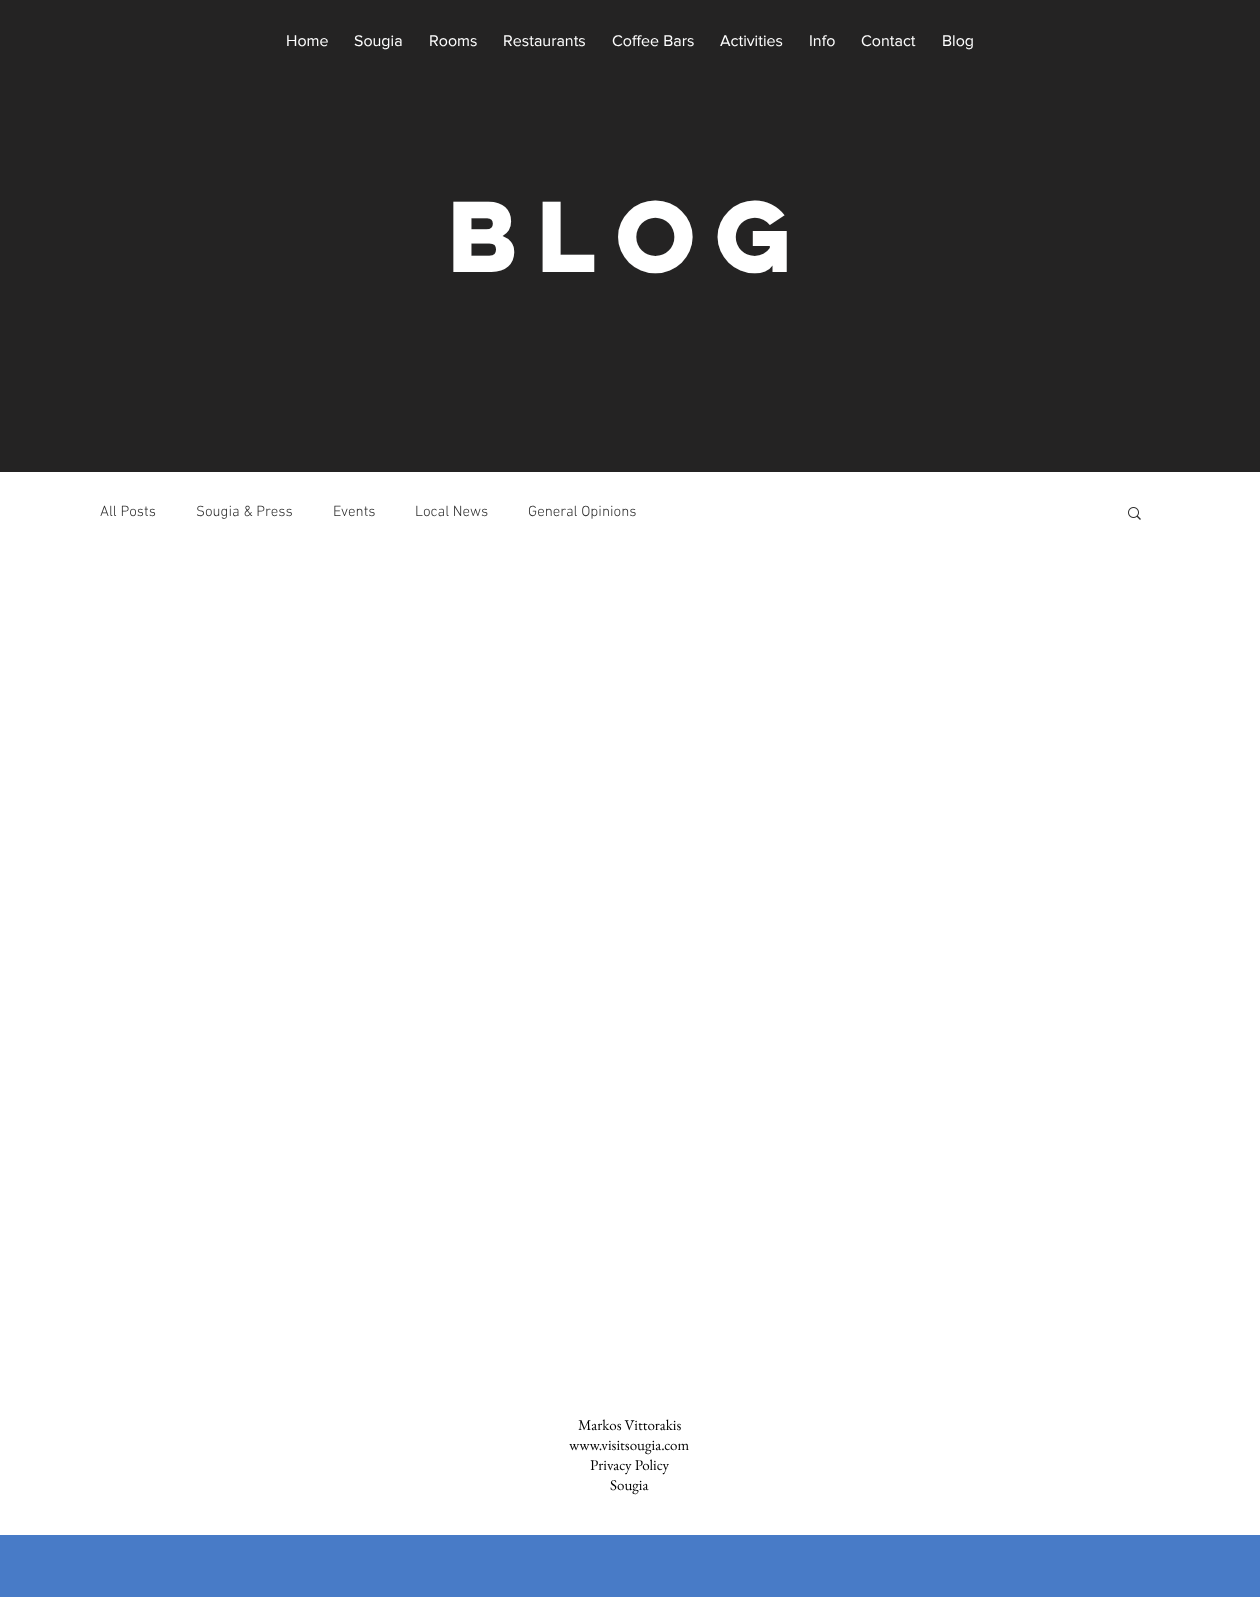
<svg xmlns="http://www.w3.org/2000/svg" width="1260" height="1597">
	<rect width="100%" height="100%" fill="#487BC7" />
	<rect x="0" y="0" width="1260" height="472" fill="#242323" />
	<g font-family="'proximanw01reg'" font-size="16" fill="#FFFFFF">
		<text x="286" y="46">Home</text>
		<text x="354" y="46">Sougia</text>
		<text x="429" y="46">Rooms</text>
		<text x="503" y="46">Restaurants</text>
		<text x="612" y="46">Coffee Bars</text>
		<text x="720" y="46">Activities</text>
		<text x="809" y="46">Info</text>
		<text x="861" y="46">Contact</text>
		<text x="942" y="46">Blog</text>
	</g>
	<text x="448" y="272" font-family="'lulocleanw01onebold'" font-size="90" font-weight="700" fill="#FFFFFF">Blog</text>
	<rect x="0" y="472" width="1260" height="1063" fill="#FFFFFF" />
	<g font-family="'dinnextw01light'" font-size="15" font-weight="300" fill="#2E2E2E">
		<text x="100" y="516">All Posts</text>
		<text x="196" y="516">Sougia &amp; Press</text>
		<text x="333" y="516">Events</text>
		<text x="415" y="516">Local News</text>
		<text x="528" y="516">General Opinions</text>
	</g>
	<image x="1128" y="507" width="13" height="13" href="assets/img1.png" />
	<g font-family="EB Garamond" font-size="15" fill="#000000">
		<text x="578" y="1430">Markos Vittorakis</text>
		<text x="569" y="1450">www.visitsougia.com</text>
		<text x="590" y="1470">Privacy Policy</text>
		<text x="610" y="1490">Sougia</text>
	</g>
</svg>
